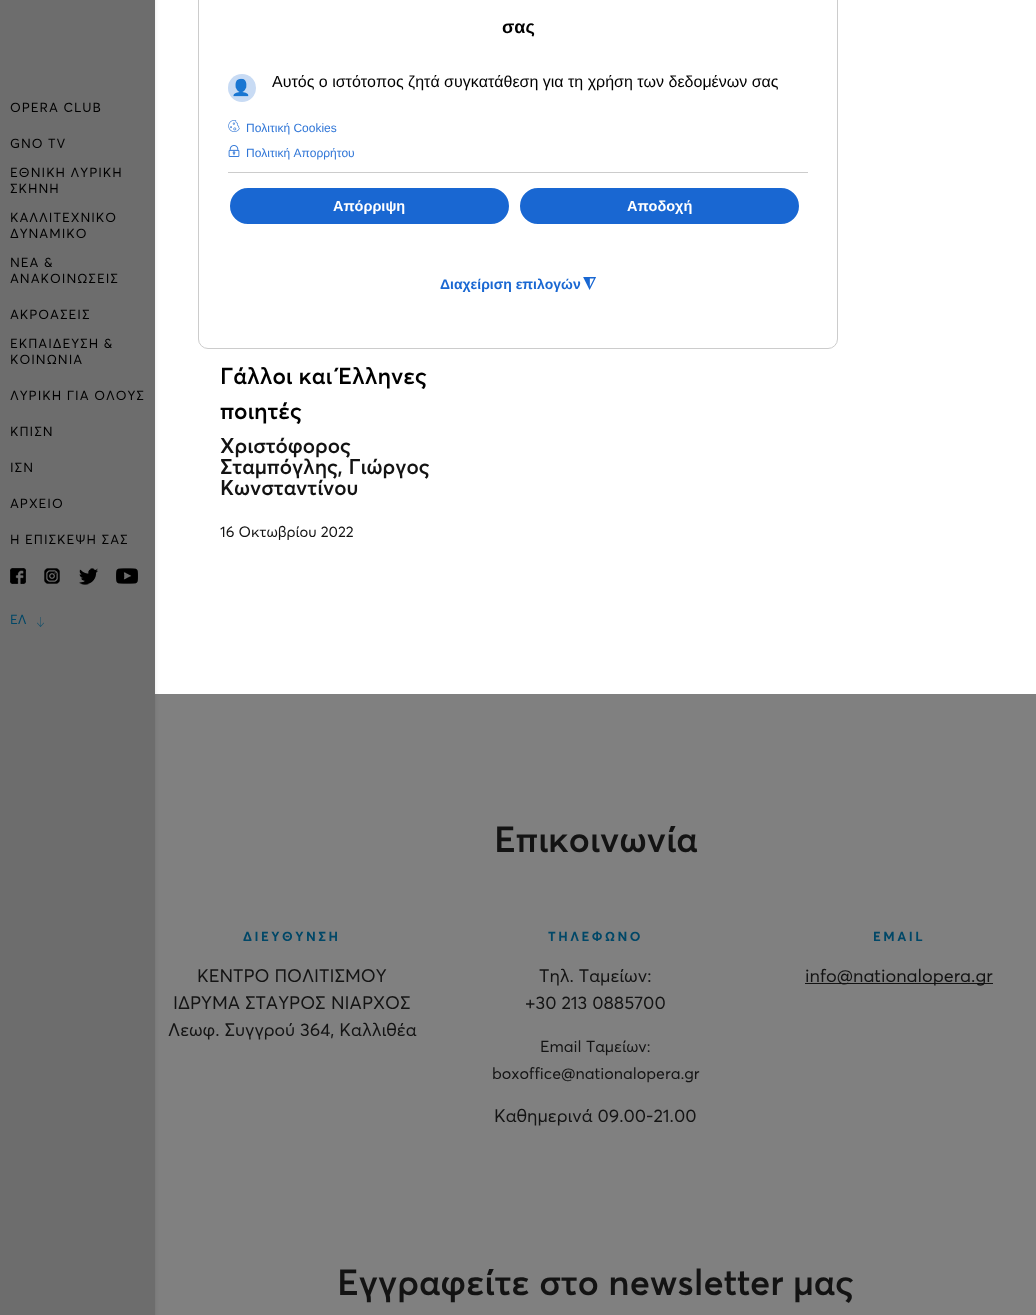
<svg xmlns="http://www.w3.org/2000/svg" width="1036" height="1315">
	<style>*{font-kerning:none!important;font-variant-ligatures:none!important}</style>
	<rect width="100%" height="100%" fill="#FFFFFF" />
	<rect x="198.5" y="-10.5" width="639" height="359" rx="9.5" fill="none" stroke="#CCCCCC" />
	<text x="502" y="33" font-family="Liberation Sans" font-size="18" font-weight="700" fill="#000000">σας</text>
	<circle cx="242" cy="88" r="14" fill="#C8DBF4" />
	<text x="231" y="93" font-family="Noto Color Emoji" font-size="16" fill="#000000">👤</text>
	<text x="272" y="87" font-family="Liberation Sans" font-size="16" fill="#000000">Αυτός ο ιστότοπος ζητά συγκατάθεση για τη χρήση των δεδομένων σας</text>
	<image x="228" y="120" width="12" height="12" href="assets/img1.png" />
	<text x="246" y="132" font-family="Liberation Sans" font-size="12" fill="#3076D7">Πολιτική Cookies</text>
	<image x="228" y="145" width="12" height="12" href="assets/img2.png" />
	<text x="246" y="157" font-family="Liberation Sans" font-size="12" fill="#3076D7">Πολιτική Απορρήτου</text>
	<rect x="228" y="172" width="580" height="1" fill="#CCCCCC" />
	<rect x="229" y="187" width="281" height="38" rx="19" fill="#1967D2" stroke="#FFFFFF" stroke-width="2" />
	<text x="333" y="211" font-family="Liberation Sans" font-size="14.5" font-weight="700" fill="#FFFFFF">Απόρριψη</text>
	<rect x="519" y="187" width="281" height="38" rx="19" fill="#1967D2" stroke="#FFFFFF" stroke-width="2" />
	<text x="627" y="211" font-family="Liberation Sans" font-size="14.5" font-weight="700" fill="#FFFFFF">Αποδοχή</text>
	<text x="440" y="289" font-family="Liberation Sans" font-size="14" font-weight="700" fill="#1967D2">Διαχείριση επιλογών</text>
	<text x="596" y="279" transform="rotate(180 596 279)" font-family="DejaVu Sans" font-size="16" font-weight="700" fill="#1967D2">◮</text>
	<rect x="155" y="694" width="881" height="621" fill="#808080" />
	<rect x="0" y="-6" width="155" height="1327" fill="#000000" fill-opacity="0.1" filter="blur(2px)" />
	<rect x="0" y="0" width="155" height="1315" fill="#6D6D6D" />
	<g font-family="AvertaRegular" font-size="13" letter-spacing="1" fill="#000000">
		<text x="10" y="112">OPERA CLUB</text>
		<text x="10" y="148">GNO TV</text>
		<text x="10" y="177">ΕΘΝΙΚΗ ΛΥΡΙΚΗ</text>
		<text x="10" y="193">ΣΚΗΝΗ</text>
		<text x="10" y="222">ΚΑΛΛΙΤΕΧΝΙΚΟ</text>
		<text x="10" y="238">ΔΥΝΑΜΙΚΟ</text>
		<text x="10" y="267">ΝΕΑ &amp;</text>
		<text x="10" y="283">ΑΝΑΚΟΙΝΩΣΕΙΣ</text>
		<text x="10" y="319">ΑΚΡΟΑΣΕΙΣ</text>
		<text x="10" y="348">ΕΚΠΑΙΔΕΥΣΗ &amp;</text>
		<text x="10" y="364">ΚΟΙΝΩΝΙΑ</text>
		<text x="10" y="400">ΛΥΡΙΚΗ ΓΙΑ ΟΛΟΥΣ</text>
		<text x="10" y="436">ΚΠΙΣΝ</text>
		<text x="10" y="472">ΙΣΝ</text>
		<text x="10" y="508">ΑΡΧΕΙΟ</text>
		<text x="10" y="544">Η ΕΠΙΣΚΕΨΗ ΣΑΣ</text>
	</g>
	<image x="10" y="568" width="16" height="16" href="assets/img3.png" />
	<image x="44" y="568" width="16" height="16" href="assets/img4.png" />
	<image x="79" y="568" width="19" height="17" href="assets/img5.png" />
	<image x="116" y="568" width="22" height="16" href="assets/img6.png" />
	<text x="10" y="624" font-family="AvertaRegular" font-size="13" fill="#004767">ΕΛ</text>
	<image x="37" y="617" width="7" height="10" href="assets/img7.png" />
	<g font-family="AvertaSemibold" font-size="23" font-weight="600" fill="#000000">
		<text x="220" y="384">Γάλλοι και Έλληνες</text>
		<text x="220" y="419">ποιητές</text>
	</g>
	<g font-family="AvertaSemibold" font-size="21" font-weight="600" fill="#131313">
		<text x="220" y="453">Χριστόφορος</text>
		<text x="220" y="474">Σταμπόγλης, Γιώργος</text>
		<text x="220" y="495">Κωνσταντίνου</text>
	</g>
	<text x="220" y="537" font-family="AvertaRegular" font-size="15" fill="#131313">16 Οκτωβρίου 2022</text>
	<text x="494" y="852" font-family="AvertaSemibold" font-size="36" font-weight="600" fill="#131313">Επικοινωνία</text>
	<text x="243" y="941" font-family="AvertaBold" font-size="13" font-weight="700" letter-spacing="2.5" fill="#004767">ΔΙΕΥΘΥΝΣΗ</text>
	<g font-family="AvertaRegular" font-size="18" fill="#131313">
		<text x="197" y="982">ΚΕΝΤΡΟ ΠΟΛΙΤΙΣΜΟΥ</text>
		<text x="173" y="1009">ΙΔΡΥΜΑ ΣΤΑΥΡΟΣ</text>
		<text x="331" y="1009">ΝΙΑΡΧΟΣ</text>
		<text x="168" y="1036">Λεωφ. Συγγρού 364, Καλλιθέα</text>
	</g>
	<text x="548" y="941" font-family="AvertaBold" font-size="13" font-weight="700" letter-spacing="2.5" fill="#004767">ΤΗΛΕΦΩΝΟ</text>
	<g font-family="AvertaRegular" font-size="18" fill="#131313">
		<text x="539" y="982">Τηλ. Ταμείων:</text>
		<text x="525" y="1009">+30 213 0885700</text>
	</g>
	<g font-family="AvertaRegular" font-size="16" fill="#131313">
		<text x="540" y="1052">Εmail Ταμείων:</text>
		<text x="492" y="1079">boxoffice@nationalopera.gr</text>
	</g>
	<text x="494" y="1122" font-family="AvertaRegular" font-size="18" fill="#131313">Καθημερινά 09.00-21.00</text>
	<text x="873" y="941" font-family="AvertaBold" font-size="13" font-weight="700" letter-spacing="2.5" fill="#004767">EMAIL</text>
	<rect x="805" y="983" width="188" height="1" fill="#131313" />
	<text x="805" y="982" font-family="AvertaRegular" font-size="18" fill="#131313">info@nationalopera.gr</text>
	<text x="337" y="1295" font-family="AvertaSemibold" font-size="36" font-weight="600" fill="#131313">Εγγραφείτε στο newsletter</text>
	<text x="793" y="1295" font-family="AvertaSemibold" font-size="36" font-weight="600" fill="#131313">μας</text>
</svg>
